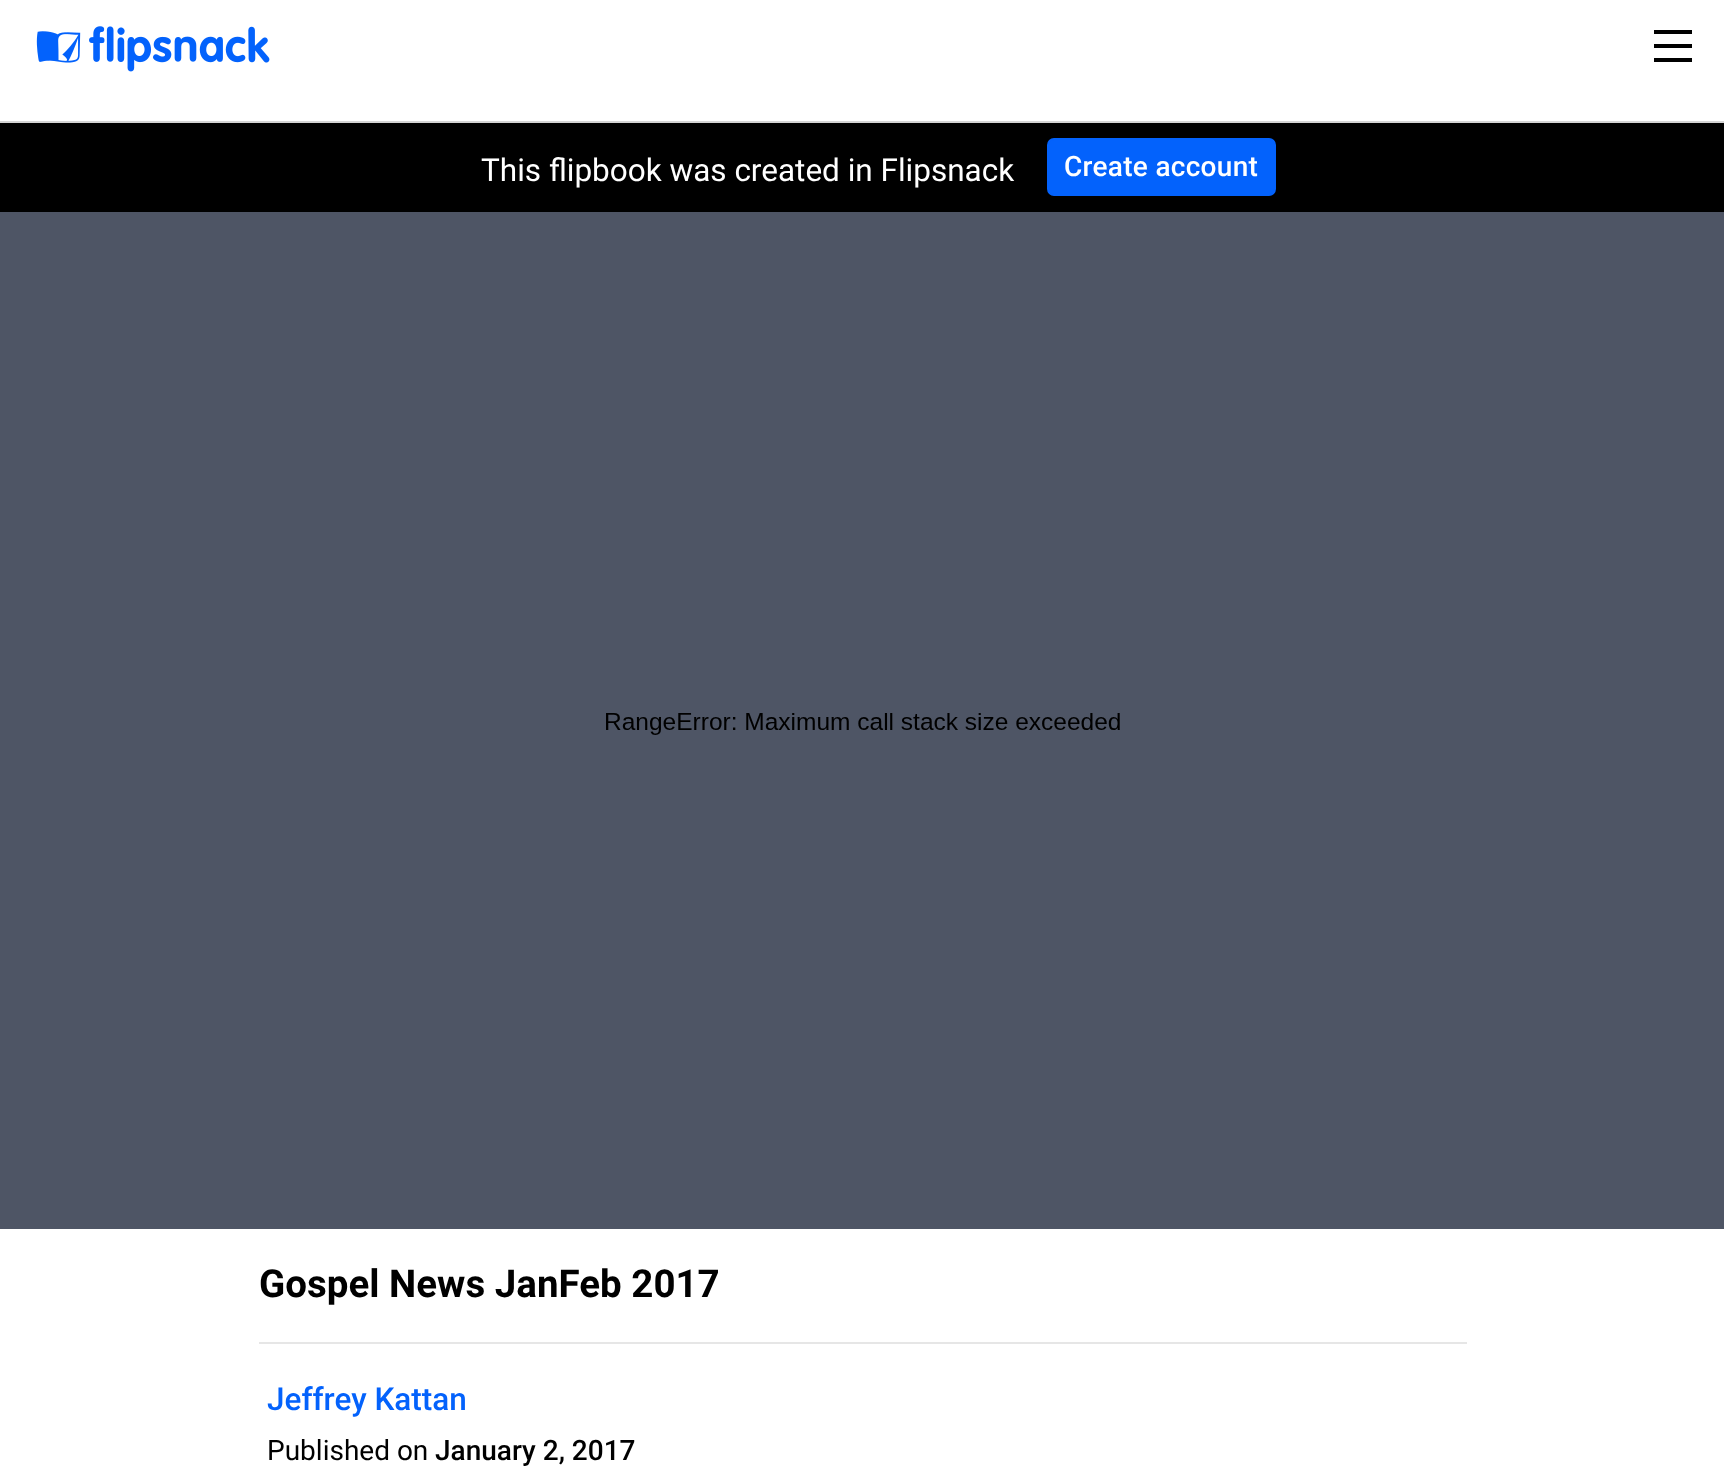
<svg xmlns="http://www.w3.org/2000/svg" width="1724" height="1479">
	<rect width="100%" height="100%" fill="#FFFFFF" />
	<rect x="0" y="121" width="1724" height="2" fill="#D5D5D5" />
	<image x="36" y="26" width="234" height="46" href="assets/img1.png" />
	<rect x="1654" y="30" width="38" height="4" fill="#000000" />
	<rect x="1654" y="44" width="38" height="4" fill="#000000" />
	<rect x="1654" y="58" width="38" height="4" fill="#000000" />
	<rect x="0" y="123" width="1724" height="89" fill="#000000" />
	<text x="481" y="181" font-family="Roboto" font-size="31.5" fill="#FFFFFF">This flipbook was created in Flipsnack</text>
	<rect x="1048" y="139" width="227" height="56" rx="6" fill="#0362FC" stroke="#0362FC" stroke-width="2" />
	<text x="1064" y="176" font-family="Roboto" font-size="28" font-weight="500" letter-spacing="0.3" fill="#FFFFFF">Create account</text>
	<rect x="0" y="212" width="1724" height="1017" fill="#4E5565" />
	<image x="606" y="713" width="514" height="22" href="assets/img2.png" />
	<text x="259" y="1297" font-family="Roboto" font-size="38.5" font-weight="700" fill="#000000">Gospel News JanFeb 2017</text>
	<rect x="259" y="1342" width="1208" height="2" fill="#E6E6E6" />
	<text x="267" y="1410" font-family="Roboto" font-size="31.5" font-weight="500" fill="#0362FC">Jeffrey Kattan</text>
	<text x="267" y="1460" font-family="Roboto" font-size="28" fill="#000000">Published on</text>
	<text x="435" y="1460" font-family="Roboto" font-size="28" font-weight="500" fill="#000000">January 2, 2017</text>
</svg>
